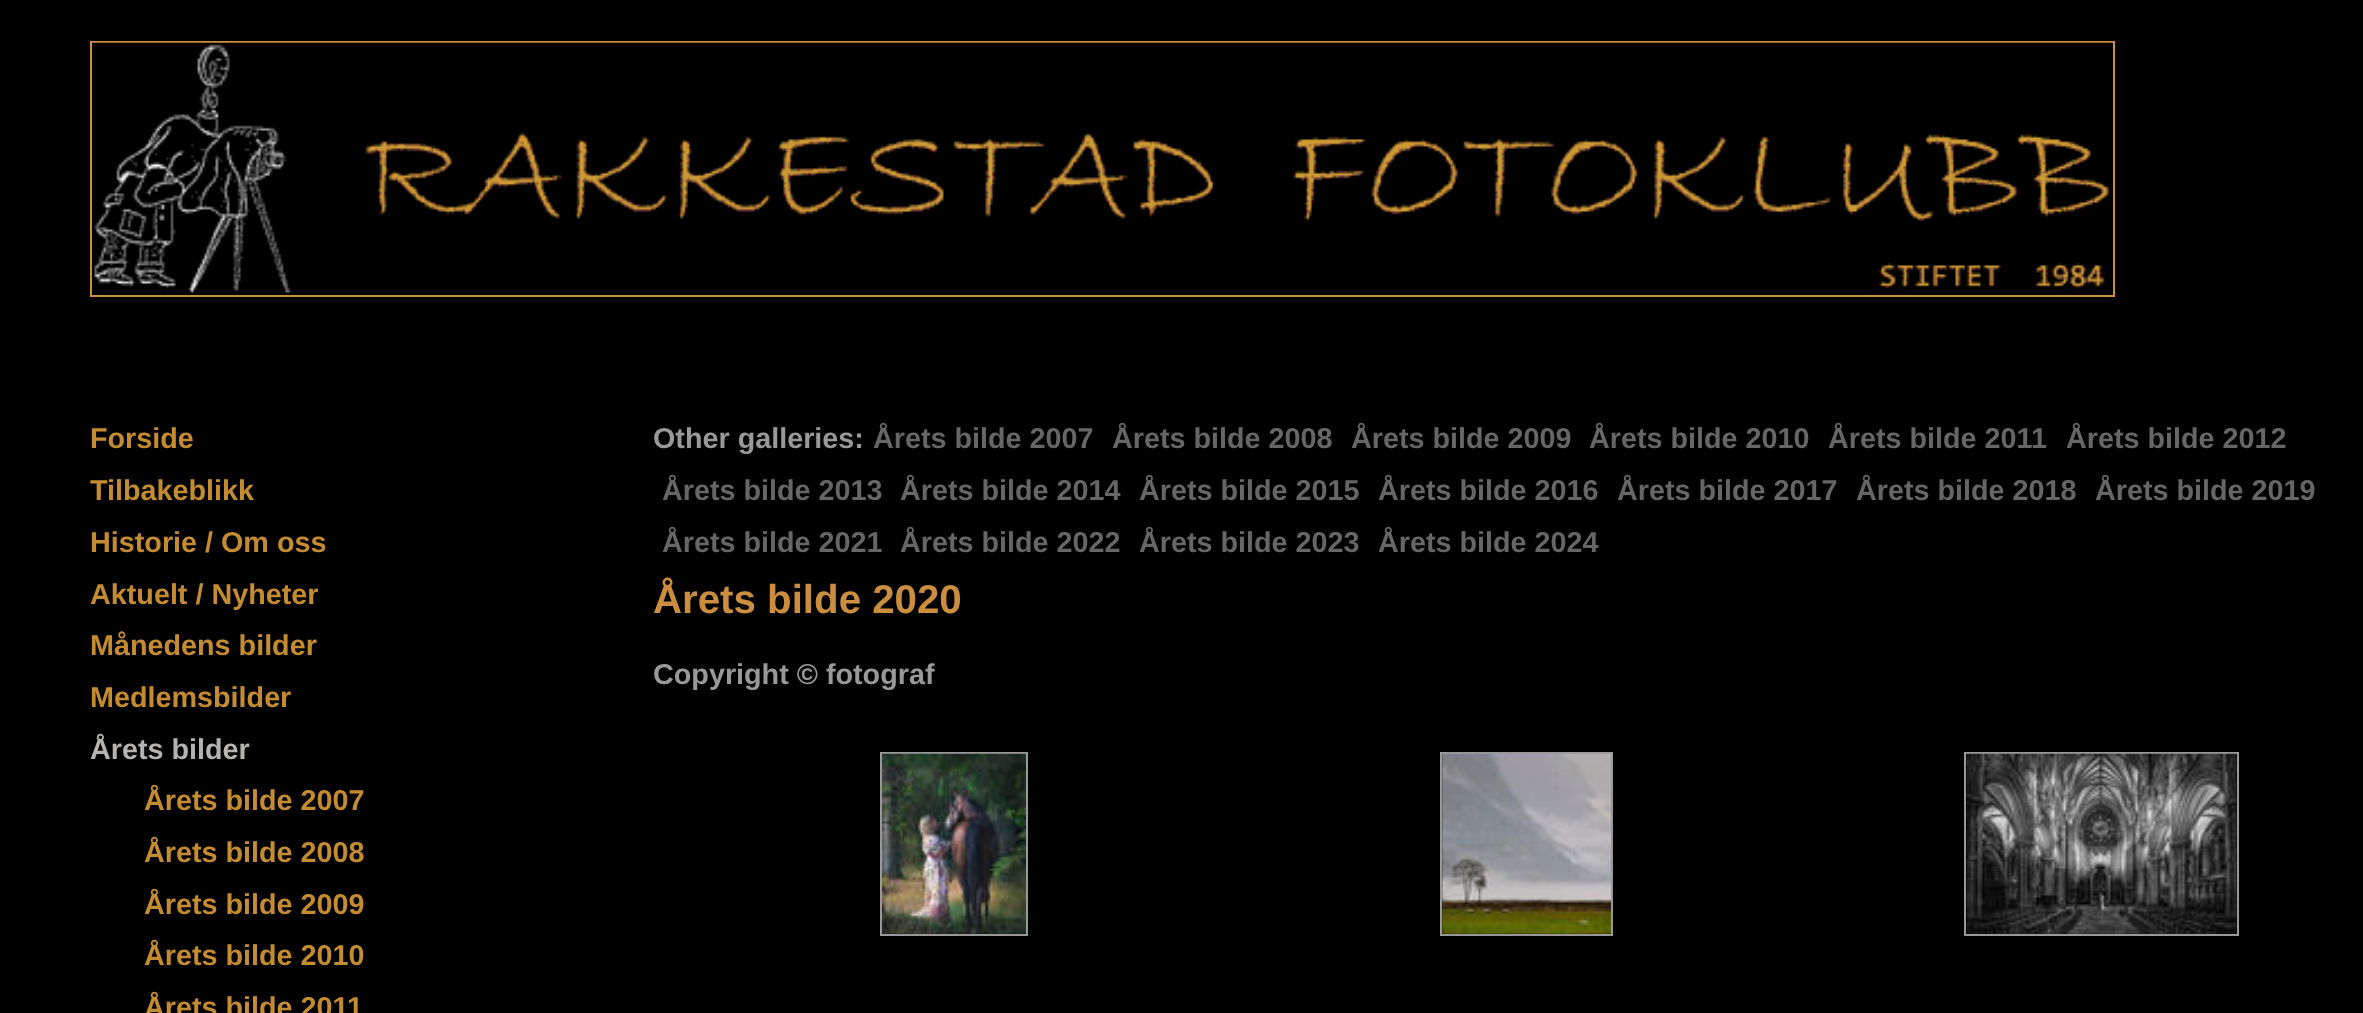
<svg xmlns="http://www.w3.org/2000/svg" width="2363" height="1013">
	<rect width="100%" height="100%" fill="#000000" />
	<rect x="91" y="42" width="2023" height="254" fill="none" stroke="#CB8D3E" stroke-width="2" />
	<image x="92" y="42" width="2021" height="252" href="assets/img1.png" />
	<g font-family="Liberation Sans" font-size="28.75" font-weight="700" fill="#C48C31">
		<text x="90" y="448">Forside</text>
		<text x="90" y="500">Tilbakeblikk</text>
		<text x="90" y="552">Historie / Om oss</text>
		<text x="90" y="604">Aktuelt / Nyheter</text>
		<text x="90" y="655">Månedens bilder</text>
		<text x="90" y="707">Medlemsbilder</text>
	</g>
	<text x="90" y="759" font-family="Liberation Sans" font-size="28.75" font-weight="700" fill="#B5B4B1">Årets bilder</text>
	<text x="653" y="448" font-family="Liberation Sans" font-size="28.75" font-weight="700" fill="#999999">Other galleries:</text>
	<g font-family="Liberation Sans" font-size="28.75" font-weight="700" fill="#666666">
		<text x="873" y="448">Årets bilde 2007</text>
		<text x="1112" y="448">Årets bilde 2008</text>
		<text x="1351" y="448">Årets bilde 2009</text>
		<text x="1589" y="448">Årets bilde 2010</text>
		<text x="1828" y="448">Årets bilde 2011</text>
		<text x="2066" y="448">Årets bilde 2012</text>
		<text x="662" y="500">Årets bilde 2013</text>
		<text x="900" y="500">Årets bilde 2014</text>
		<text x="1139" y="500">Årets bilde 2015</text>
		<text x="1378" y="500">Årets bilde 2016</text>
		<text x="1617" y="500">Årets bilde 2017</text>
		<text x="1856" y="500">Årets bilde 2018</text>
		<text x="2095" y="500">Årets bilde 2019</text>
		<text x="662" y="552">Årets bilde 2021</text>
		<text x="900" y="552">Årets bilde 2022</text>
		<text x="1139" y="552">Årets bilde 2023</text>
		<text x="1378" y="552">Årets bilde 2024</text>
	</g>
	<text x="653" y="613" font-family="Liberation Sans" font-size="40.25" font-weight="700" fill="#CB8D3E">Årets bilde 2020</text>
	<text x="653" y="684" font-family="Liberation Sans" font-size="28.75" font-weight="700" fill="#999999">Copyright © fotograf</text>
	<rect x="881" y="753" width="146" height="182" fill="none" stroke="#999999" stroke-width="2" />
	<image x="882" y="753" width="144" height="181" href="assets/img2.png" />
	<rect x="1441" y="753" width="171" height="182" fill="none" stroke="#999999" stroke-width="2" />
	<image x="1442" y="753" width="169" height="181" href="assets/img3.png" />
	<rect x="1965" y="753" width="273" height="182" fill="none" stroke="#999999" stroke-width="2" />
	<image x="1966" y="753" width="271" height="181" href="assets/img4.png" />
	<g font-family="Liberation Sans" font-size="28.75" font-weight="700" fill="#C48C31">
		<text x="144" y="810">Årets bilde 2007</text>
		<text x="144" y="862">Årets bilde 2008</text>
		<text x="144" y="914">Årets bilde 2009</text>
		<text x="144" y="965">Årets bilde 2010</text>
		<text x="144" y="1017">Årets bilde 2011</text>
	</g>
</svg>
